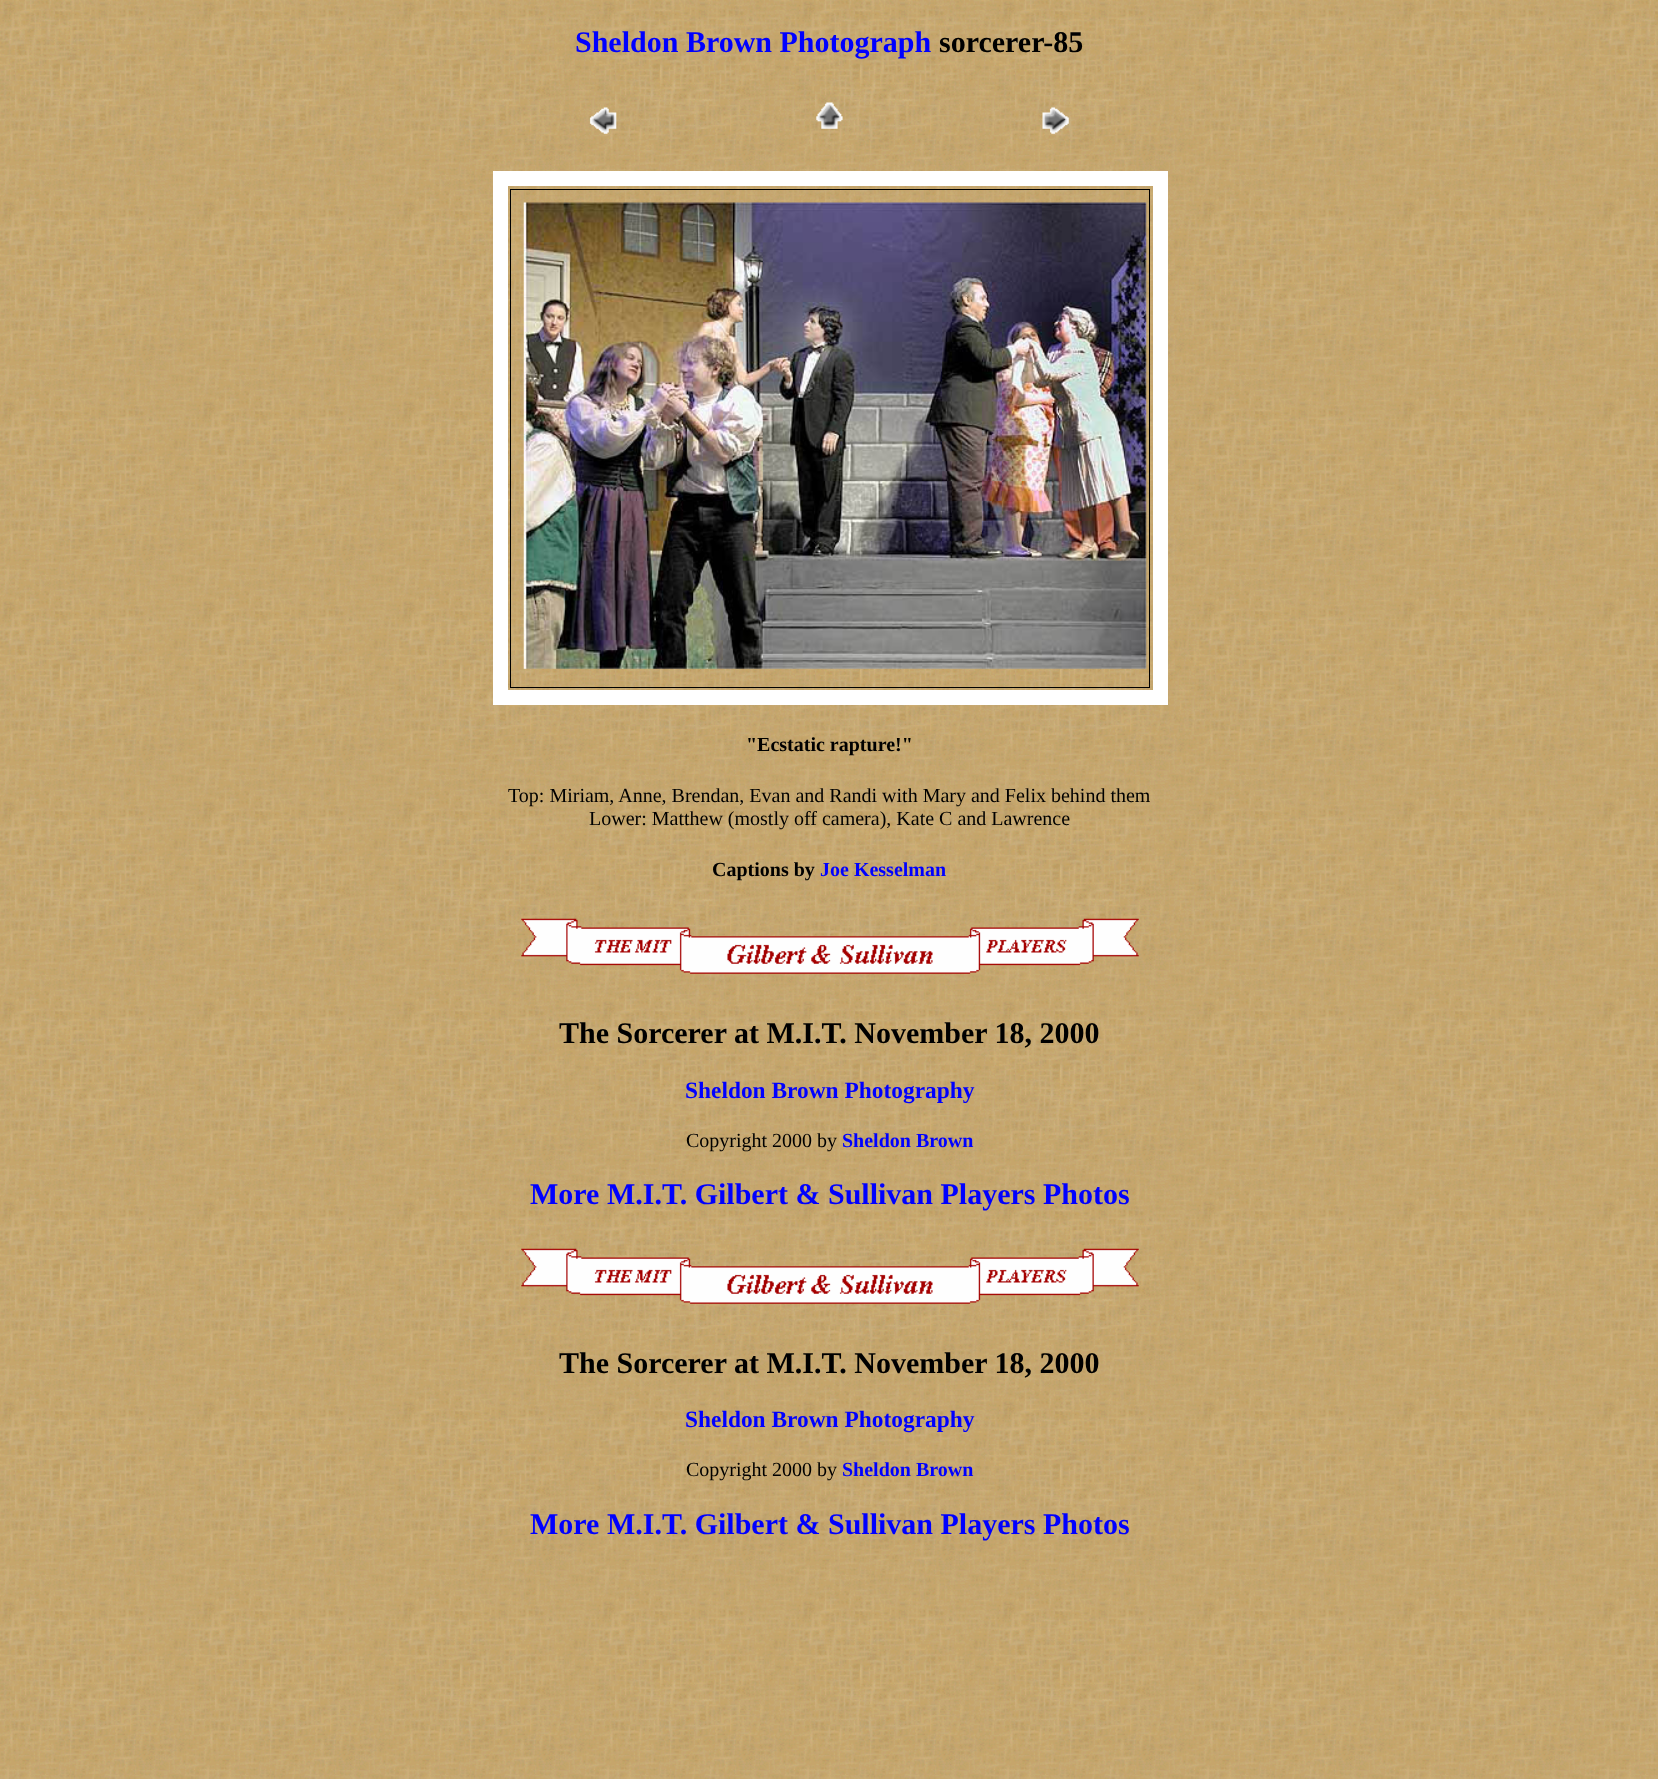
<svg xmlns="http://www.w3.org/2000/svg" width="1658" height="1779">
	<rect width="100%" height="100%" fill="#FFFFFF" />
	<image x="0" y="0" width="1658" height="1779" href="assets/img1.png" />
	<text x="575" y="52" font-family="Liberation Serif" font-size="30" font-weight="700" fill="#0000FF">Sheldon Brown Photograph</text>
	<text x="939" y="52" font-family="Liberation Serif" font-size="30" font-weight="700" fill="#000000">sorcerer-85</text>
	<image x="589" y="107" width="28" height="27" href="assets/img2.png" />
	<image x="816" y="102" width="27" height="27" href="assets/img3.png" />
	<image x="1042" y="107" width="27" height="27" href="assets/img4.png" />
	<rect x="500.5" y="178.5" width="660" height="519" fill="none" stroke="#FFFFFF" stroke-width="15" />
	<rect x="510.5" y="189.5" width="639" height="498" fill="none" stroke="#000000" />
	<image x="523" y="202" width="624" height="467" href="assets/img5.png" />
	<text x="746" y="751" font-family="Liberation Serif" font-size="20" font-weight="700" fill="#000000">"Ecstatic rapture!"</text>
	<g font-family="Liberation Serif" font-size="20" fill="#000000">
		<text x="508" y="802">Top: Miriam, Anne, Brendan, Evan and Randi with Mary and Felix behind them</text>
		<text x="589" y="825">Lower: Matthew (mostly off camera), Kate C and Lawrence</text>
	</g>
	<text x="712" y="876" font-family="Liberation Serif" font-size="20" font-weight="700" fill="#000000">Captions by</text>
	<text x="820" y="876" font-family="Liberation Serif" font-size="20" font-weight="700" fill="#0000FF">Joe Kesselman</text>
	<image x="521" y="918" width="618" height="56" href="assets/img6.png" />
	<text x="559" y="1043" font-family="Liberation Serif" font-size="30" font-weight="700" fill="#000000">The Sorcerer at M.I.T. November 18, 2000</text>
	<text x="685" y="1098" font-family="Liberation Serif" font-size="23.4" font-weight="700" fill="#0000FF">Sheldon Brown Photography</text>
	<text x="686" y="1147" font-family="Liberation Serif" font-size="20" fill="#000000">Copyright 2000 by</text>
	<text x="842" y="1147" font-family="Liberation Serif" font-size="20" font-weight="700" fill="#0000FF">Sheldon Brown</text>
	<text x="530" y="1204" font-family="Liberation Serif" font-size="30" font-weight="700" fill="#0000FF">More M.I.T. Gilbert &amp; Sullivan Players Photos</text>
	<image x="521" y="1248" width="618" height="56" href="assets/img7.png" />
	<text x="559" y="1373" font-family="Liberation Serif" font-size="30" font-weight="700" fill="#000000">The Sorcerer at M.I.T. November 18, 2000</text>
	<text x="685" y="1427" font-family="Liberation Serif" font-size="23.4" font-weight="700" fill="#0000FF">Sheldon Brown Photography</text>
	<text x="686" y="1476" font-family="Liberation Serif" font-size="20" fill="#000000">Copyright 2000 by</text>
	<text x="842" y="1476" font-family="Liberation Serif" font-size="20" font-weight="700" fill="#0000FF">Sheldon Brown</text>
	<text x="530" y="1534" font-family="Liberation Serif" font-size="30" font-weight="700" fill="#0000FF">More M.I.T. Gilbert &amp; Sullivan Players Photos</text>
</svg>
